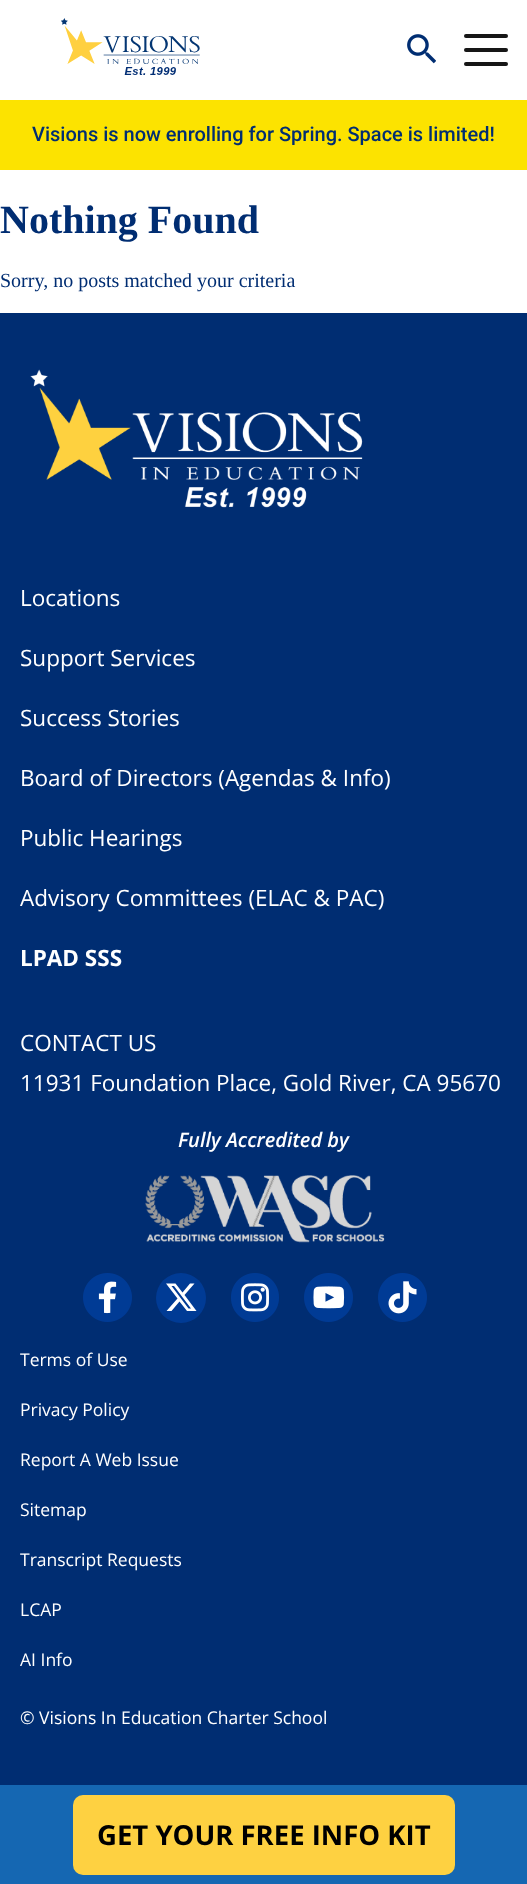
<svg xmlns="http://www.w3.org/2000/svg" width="527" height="1884">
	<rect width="100%" height="100%" fill="#FFFFFF" />
	<image x="61" y="18" width="139" height="57" href="assets/img1.png" />
	<image x="407" y="34" width="29" height="30" href="assets/img2.png" />
	<rect x="464" y="34" width="44" height="4" rx="2" fill="#161616" />
	<rect x="464" y="48" width="44" height="4" rx="2" fill="#161616" />
	<rect x="464" y="62" width="44" height="4" rx="2" fill="#161616" />
	<rect x="0" y="100" width="527" height="70" fill="#FCE300" />
	<text x="32" y="141" font-family="Roboto" font-size="20" font-weight="500" fill="#002D72">Visions is now enrolling for Spring. Space is limited!</text>
	<rect x="0" y="1785" width="527" height="99" fill="#1567B2" />
	<rect x="73" y="1795" width="382" height="80" rx="10" fill="#FED141" />
	<text x="97" y="1845" font-family="Open Sans" font-size="27.5" font-weight="700" fill="#000000">GET YOUR FREE INFO KIT</text>
	<text x="0" y="233" font-family="Liberation Serif" font-size="40" font-weight="700" fill="#002D72">Nothing Found</text>
	<text x="0" y="287" font-family="Liberation Serif" font-size="20" fill="#002D72">Sorry, no posts matched your criteria</text>
	<rect x="0" y="313" width="527" height="1472" fill="#002D72" />
	<image x="30" y="369" width="333" height="139" href="assets/img3.png" />
	<g font-family="Open Sans" font-size="22.5" fill="#FFFFFF">
		<text x="20" y="606">Locations</text>
		<text x="20" y="666">Support Services</text>
		<text x="20" y="726">Success Stories</text>
		<text x="20" y="786">Board of Directors (Agendas &amp; Info)</text>
		<text x="20" y="846">Public Hearings</text>
		<text x="20" y="906">Advisory Committees (ELAC &amp; PAC)</text>
	</g>
	<text x="20" y="966" font-family="Open Sans" font-size="22.5" font-weight="700" fill="#FFFFFF">LPAD SSS</text>
	<g font-family="Open Sans" font-size="22.5" fill="#FFFFFF">
		<text x="20" y="1051">CONTACT US</text>
		<text x="20" y="1091">11931 Foundation Place, Gold River, CA 95670</text>
	</g>
	<text x="178" y="1147" font-family="Open Sans" font-size="20" font-weight="600" font-style="italic" fill="#FFFFFF">Fully Accredited by</text>
	<image x="145" y="1175" width="240" height="68" href="assets/img4.png" />
	<image x="83" y="1273" width="49" height="49" href="assets/img5.png" />
	<circle cx="181" cy="1298" r="25" fill="#003B95" />
	<path d="M190 1283.5H194.5L184.5 1295L196.5 1311H187L179.5 1301.5L171.5 1311H166.5L177.5 1298.5L166 1283.5H175.5L182.5 1292.5ZM188.5 1308.5H191L174 1286H171.5Z" fill="#FFFFFF" />
	<image x="231" y="1273" width="48" height="49" href="assets/img6.png" />
	<image x="304" y="1273" width="49" height="49" href="assets/img7.png" />
	<image x="378" y="1273" width="49" height="49" href="assets/img8.png" />
	<g font-family="Open Sans" font-size="17.5" fill="#FFFFFF">
		<text x="20" y="1366">Terms of Use</text>
		<text x="20" y="1416">Privacy Policy</text>
		<text x="20" y="1466">Report A Web Issue</text>
		<text x="20" y="1516">Sitemap</text>
		<text x="20" y="1566">Transcript Requests</text>
		<text x="20" y="1616">LCAP</text>
		<text x="20" y="1666">AI Info</text>
		<text x="20" y="1724">© Visions In Education Charter School</text>
	</g>
</svg>
